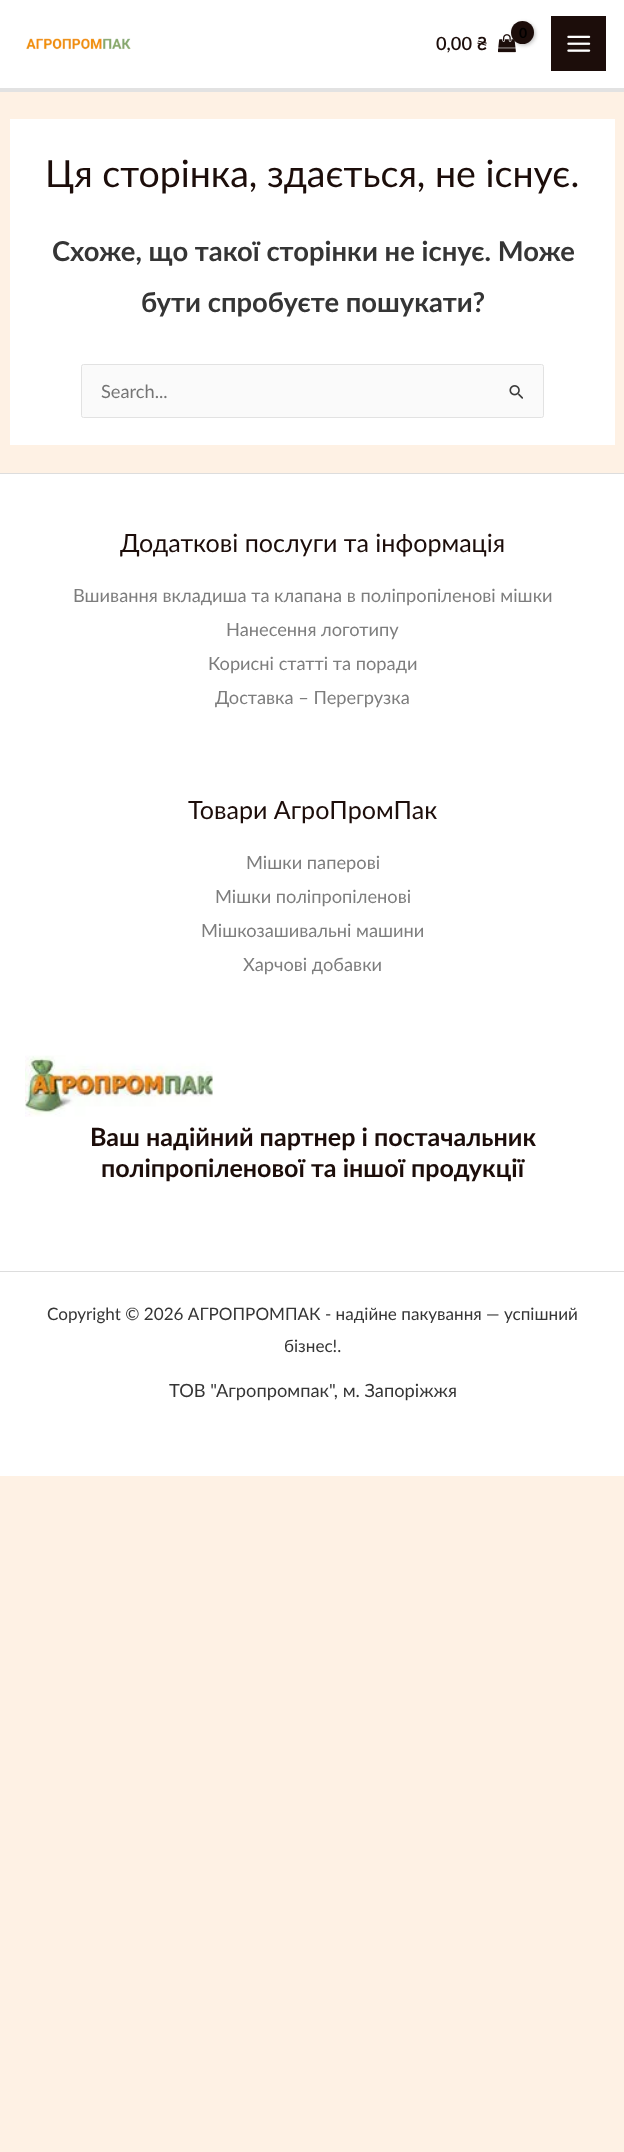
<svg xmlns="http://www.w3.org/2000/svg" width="624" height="2152">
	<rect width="100%" height="100%" fill="#FEF1E4" />
	<rect x="0" y="0" width="624" height="88" fill="#FFFFFF" />
	<rect x="0" y="88" width="624" height="4" fill="#E2E2E2" />
	<image x="26" y="38" width="105" height="12" href="assets/img1.png" />
	<image x="498" y="34" width="18" height="19" href="assets/img2.png" />
	<rect x="513" y="23" width="22" height="22" rx="11" fill="#000000" fill-opacity="0.3" filter="blur(2px)" />
	<circle cx="522.5" cy="32.5" r="11.5" fill="#1C0D0A" />
	<text x="519" y="38" font-family="Lato" font-size="14" font-weight="700" letter-spacing="-1" fill="#000000">0</text>
	<text x="436" y="50" font-family="Lato" font-size="18.25" font-weight="600" fill="#1C0D0A">0,00 ₴</text>
	<rect x="551" y="16" width="55" height="55" fill="#1C0D0A" />
	<image x="567" y="35" width="24" height="17" href="assets/img3.png" />
	<rect x="10" y="119" width="605" height="326" fill="#FFFFFF" />
	<text x="45" y="187" font-family="Lato" font-size="37.5" fill="#1C0D0A">Ця сторінка, здається, не існує.</text>
	<g font-family="Lato" font-size="27.4" font-weight="700" fill="#353535">
		<text x="52" y="261">Схоже, що такої сторінки не існує. Може</text>
		<text x="141" y="312">бути спробуєте пошукати?</text>
	</g>
	<rect x="81.5" y="364.5" width="462" height="53" rx="2" fill="#FAFAFA" stroke="#E2E2E2" />
	<text x="101" y="398" font-family="Lato" font-size="18.25" fill="#757575">Search...</text>
	<image x="509" y="385" width="14" height="14" href="assets/img4.png" />
	<rect x="0" y="474" width="624" height="1002" fill="#FFFFFF" />
	<rect x="0" y="473" width="624" height="1" fill="#DDDDDD" />
	<text x="120" y="552" font-family="Lato" font-size="25.1" fill="#1C0D0A">Додаткові послуги та інформація</text>
	<g font-family="Lato" font-size="18.25" fill="#7D7D7D">
		<text x="73" y="602">Вшивання вкладиша та клапана в поліпропіленові мішки</text>
		<text x="226" y="636">Нанесення логотипу</text>
		<text x="208" y="670">Корисні статті та поради</text>
		<text x="215" y="704">Доставка – Перегрузка</text>
	</g>
	<text x="188" y="819" font-family="Lato" font-size="25.1" fill="#1C0D0A">Товари АгроПромПак</text>
	<g font-family="Lato" font-size="18.25" fill="#7D7D7D">
		<text x="246" y="869">Мішки паперові</text>
		<text x="215" y="903">Мішки поліпропіленові</text>
		<text x="201" y="937">Мішкозашивальні машини</text>
		<text x="243" y="971">Харчові добавки</text>
	</g>
	<image x="25" y="1055" width="188" height="62" href="assets/img5.png" />
	<g font-family="Lato" font-size="25.1" font-weight="700" fill="#1C0D0A">
		<text x="90" y="1146">Ваш надійний партнер і постачальник</text>
		<text x="101" y="1177">поліпропіленової та іншої продукції</text>
	</g>
	<rect x="0" y="1271" width="624" height="1" fill="#DDDDDD" />
	<g font-family="Lato" font-size="17.1" fill="#353535">
		<text x="47" y="1320">Copyright © 2026 АГРОПРОМПАК - надійне пакування — успішний</text>
		<text x="284" y="1352">бізнес!.</text>
	</g>
	<text x="169" y="1397" font-family="Lato" font-size="18.25" fill="#353535">ТОВ "Агропромпак", м. Запоріжжя</text>
</svg>
